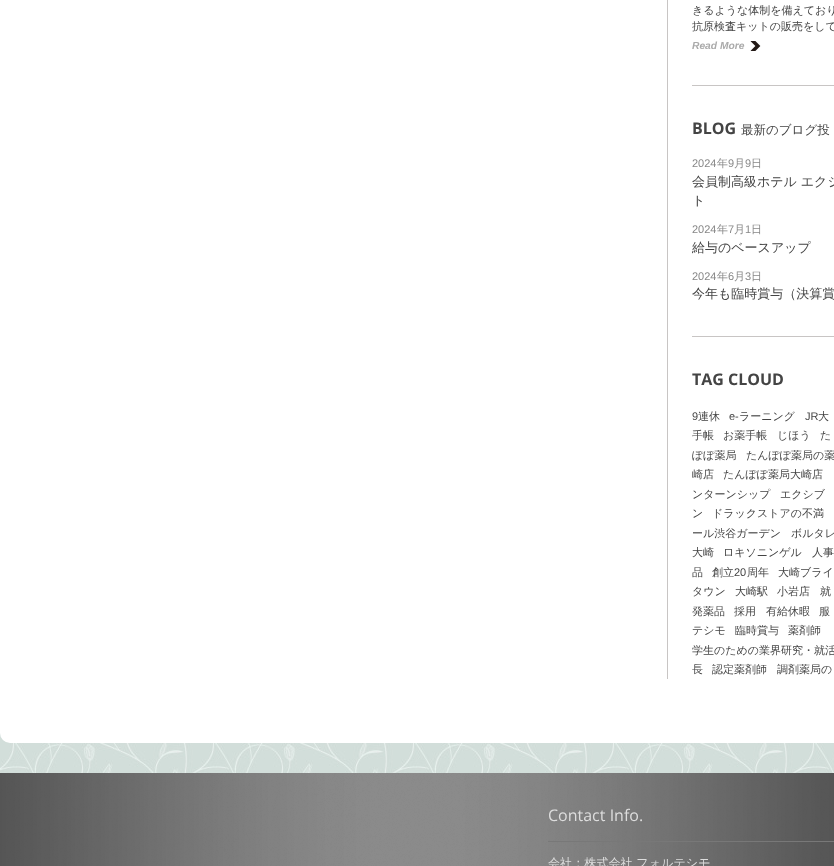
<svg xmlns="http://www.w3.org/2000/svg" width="834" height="866">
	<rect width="100%" height="100%" fill="#FFFFFF" />
	<image x="0" y="733" width="834" height="40" href="assets/img1.png" />
	<rect x="0" y="-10" width="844" height="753" rx="10" fill="#FFFFFF" />
	<rect x="667" y="0" width="1" height="679" fill="#C8C5C4" />
	<g font-family="WenQuanYi Zen Hei" font-size="11" font-weight="500" fill="#444444">
		<text x="692" y="14">きるような体制を備えており</text>
		<text x="692" y="30">抗原検査キットの販売をして</text>
	</g>
	<image x="750" y="41" width="11" height="10" href="assets/img2.png" />
	<text x="692" y="49" font-family="Liberation Sans" font-size="10.25" font-weight="700" font-style="italic" fill="#AAAAAA">Read More</text>
	<rect x="692" y="85" width="142" height="1" fill="#C8C5C4" />
	<text x="692" y="134" font-family="Open Sans" font-size="16" font-weight="700" fill="#444444">BLOG</text>
	<text x="741" y="134" font-family="WenQuanYi Zen Hei" font-size="12.5" font-weight="500" fill="#444444">最新のブログ投</text>
	<text x="692" y="167" font-family="Liberation Sans" font-size="11" fill="#888888">2024</text>
	<text x="717" y="167" font-family="WenQuanYi Zen Hei" font-size="11" font-weight="500" fill="#888888">年</text>
	<text x="728" y="167" font-family="Liberation Sans" font-size="11" fill="#888888">9</text>
	<text x="734" y="167" font-family="WenQuanYi Zen Hei" font-size="11" font-weight="500" fill="#888888">月</text>
	<text x="745" y="167" font-family="Liberation Sans" font-size="11" fill="#888888">9</text>
	<text x="751" y="167" font-family="WenQuanYi Zen Hei" font-size="11" font-weight="500" fill="#888888">日</text>
	<g font-family="WenQuanYi Zen Hei" font-size="13" font-weight="500" fill="#444444">
		<text x="692" y="186">会員制高級ホテル エクシ</text>
		<text x="692" y="205">ト</text>
	</g>
	<text x="692" y="233" font-family="Liberation Sans" font-size="11" fill="#888888">2024</text>
	<text x="717" y="233" font-family="WenQuanYi Zen Hei" font-size="11" font-weight="500" fill="#888888">年</text>
	<text x="728" y="233" font-family="Liberation Sans" font-size="11" fill="#888888">7</text>
	<text x="734" y="233" font-family="WenQuanYi Zen Hei" font-size="11" font-weight="500" fill="#888888">月</text>
	<text x="745" y="233" font-family="Liberation Sans" font-size="11" fill="#888888">1</text>
	<text x="751" y="233" font-family="WenQuanYi Zen Hei" font-size="11" font-weight="500" fill="#888888">日</text>
	<text x="692" y="252" font-family="WenQuanYi Zen Hei" font-size="13" font-weight="500" fill="#444444">給与のベースアップ</text>
	<text x="692" y="280" font-family="Liberation Sans" font-size="11" fill="#888888">2024</text>
	<text x="717" y="280" font-family="WenQuanYi Zen Hei" font-size="11" font-weight="500" fill="#888888">年</text>
	<text x="728" y="280" font-family="Liberation Sans" font-size="11" fill="#888888">6</text>
	<text x="734" y="280" font-family="WenQuanYi Zen Hei" font-size="11" font-weight="500" fill="#888888">月</text>
	<text x="745" y="280" font-family="Liberation Sans" font-size="11" fill="#888888">3</text>
	<text x="751" y="280" font-family="WenQuanYi Zen Hei" font-size="11" font-weight="500" fill="#888888">日</text>
	<text x="692" y="298" font-family="WenQuanYi Zen Hei" font-size="13" font-weight="500" fill="#444444">今年も臨時賞与（決算賞</text>
	<rect x="692" y="336" width="142" height="1" fill="#C8C5C4" />
	<text x="692" y="385" font-family="Open Sans" font-size="16" font-weight="700" fill="#444444">TAG CLOUD</text>
	<text x="692" y="420" font-family="Liberation Sans" font-size="11" fill="#444444">9</text>
	<text x="698" y="420" font-family="WenQuanYi Zen Hei" font-size="11" font-weight="500" fill="#444444">連休</text>
	<text x="729" y="420" font-family="Liberation Sans" font-size="11" fill="#444444">e-</text>
	<text x="739" y="420" font-family="WenQuanYi Zen Hei" font-size="11" font-weight="500" fill="#444444">ラーニング</text>
	<text x="805" y="420" font-family="Liberation Sans" font-size="11" fill="#444444">JR</text>
	<g font-family="WenQuanYi Zen Hei" font-size="11" font-weight="500" fill="#444444">
		<text x="818" y="420">大</text>
		<text x="692" y="439">手帳</text>
		<text x="723" y="439">お薬手帳</text>
		<text x="777" y="439">じほう</text>
		<text x="820" y="439">た</text>
		<text x="692" y="459">ぽぽ薬局</text>
		<text x="746" y="459">たんぽぽ薬局の薬</text>
		<text x="692" y="478">崎店</text>
		<text x="723" y="478">たんぽぽ薬局大崎店</text>
		<text x="692" y="498">ンターンシップ</text>
		<text x="780" y="498">エクシブ</text>
		<text x="692" y="517">ン</text>
		<text x="712" y="517">ドラックストアの不満</text>
		<text x="692" y="537">ール渋谷ガーデン</text>
		<text x="791" y="537">ボルタレ</text>
		<text x="692" y="556">大崎</text>
		<text x="723" y="556">ロキソニンゲル</text>
		<text x="812" y="556">人事</text>
		<text x="692" y="576">品</text>
		<text x="712" y="576">創立</text>
	</g>
	<text x="734" y="576" font-family="Liberation Sans" font-size="11" fill="#444444">20</text>
	<g font-family="WenQuanYi Zen Hei" font-size="11" font-weight="500" fill="#444444">
		<text x="747" y="576">周年</text>
		<text x="778" y="576">大崎ブライ</text>
		<text x="692" y="595">タウン</text>
		<text x="735" y="595">大崎駅</text>
		<text x="777" y="595">小岩店</text>
		<text x="820" y="595">就</text>
		<text x="692" y="615">発薬品</text>
		<text x="734" y="615">採用</text>
		<text x="766" y="615">有給休暇</text>
		<text x="819" y="615">服</text>
		<text x="692" y="634">テシモ</text>
		<text x="735" y="634">臨時賞与</text>
		<text x="788" y="634">薬剤師</text>
		<text x="692" y="654">学生のための業界研究・就活</text>
		<text x="692" y="673">長</text>
		<text x="712" y="673">認定薬剤師</text>
		<text x="777" y="673">調剤薬局の</text>
	</g>
	<rect x="0" y="773" width="834" height="93" fill="#3F3F3F" />
	<image x="0" y="773" width="834" height="93" href="assets/img3.png" />
	<rect x="548" y="841" width="286" height="1" fill="#787878" />
	<text x="548" y="821" font-family="Open Sans" font-size="16" fill="#DDDDDD">Contact Info.</text>
	<text x="548" y="867" font-family="WenQuanYi Zen Hei" font-size="12.1" font-weight="500" fill="#DDDDDD">会社：株式会社 フォルテシモ</text>
</svg>
